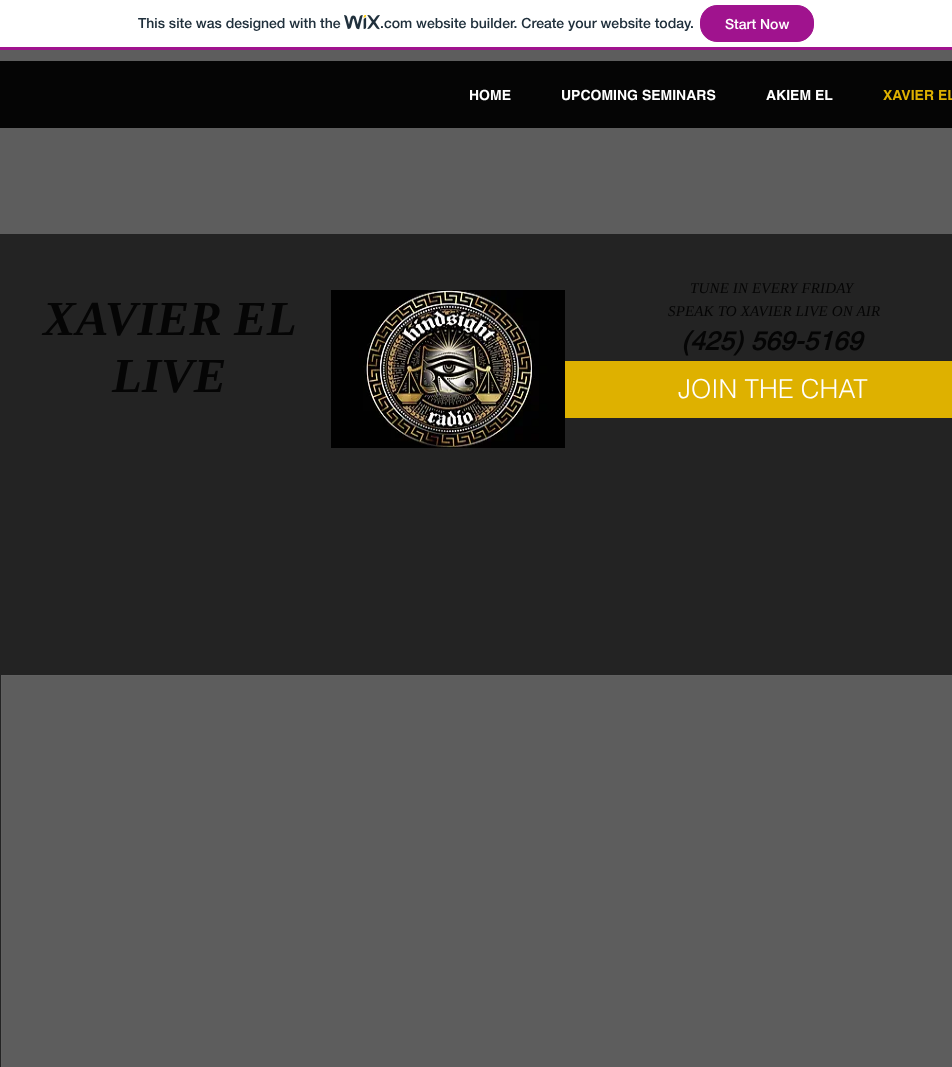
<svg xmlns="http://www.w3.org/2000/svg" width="952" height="1067">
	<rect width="100%" height="100%" fill="#FFFFFF" />
	<rect x="0" y="47" width="952" height="3" fill="#A0138E" />
	<text x="138" y="28" font-family="'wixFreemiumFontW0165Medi'" font-size="14" font-weight="500" fill="#20303C">This site was designed with the</text>
	<image x="344" y="15" width="36" height="15" href="assets/img1.png" />
	<text x="380" y="28" font-family="'wixFreemiumFontW0165Medi'" font-size="14" font-weight="500" fill="#20303C">.com website builder. Create your website today.</text>
	<rect x="700.5" y="5.5" width="113" height="36" rx="16.5" fill="#A0138E" stroke="#A0138E" />
	<text x="725" y="29" font-family="'wixFreemiumFontW0165Medi'" font-size="14" font-weight="500" fill="#FFFFFF">Start Now</text>
	<rect x="0" y="50" width="952" height="184" fill="#5D5D5D" />
	<rect x="0" y="61" width="952" height="67" fill="#050505" />
	<g font-family="helvetica" font-size="14" font-weight="700" fill="#FFFFFF">
		<text x="469" y="100">HOME</text>
		<text x="561" y="100">UPCOMING SEMINARS</text>
		<text x="766" y="100">AKIEM EL</text>
	</g>
	<text x="883" y="100" font-family="helvetica" font-size="14" font-weight="700" fill="#DEB100">XAVIER EL</text>
	<rect x="0" y="234" width="952" height="833" fill="#232323" />
	<g font-family="Liberation Serif" font-size="49" font-weight="700" font-style="italic" fill="#050505">
		<text x="43" y="335">XAVIER EL</text>
		<text x="112" y="392">LIVE</text>
	</g>
	<image x="331" y="290" width="234" height="158" href="assets/img2.png" />
	<g font-family="Liberation Serif" font-size="15" font-style="italic" letter-spacing="0.15" fill="#050505">
		<text x="690" y="293">TUNE IN EVERY FRIDAY</text>
		<text x="668" y="316">SPEAK TO XAVIER LIVE ON AIR</text>
	</g>
	<text x="681" y="350" font-family="helvetica" font-size="26" font-weight="700" font-style="italic" letter-spacing="0.25" fill="#050505">(425) 569-5169</text>
	<rect x="565" y="361" width="387" height="57" fill="#DEB100" />
	<text x="678" y="398" font-family="helvetica" font-size="26" font-weight="300" fill="#FFFFFF">JOIN THE CHAT</text>
	<rect x="1.5" y="675.5" width="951" height="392" fill="#5D5D5D" stroke="#606060" />
</svg>
